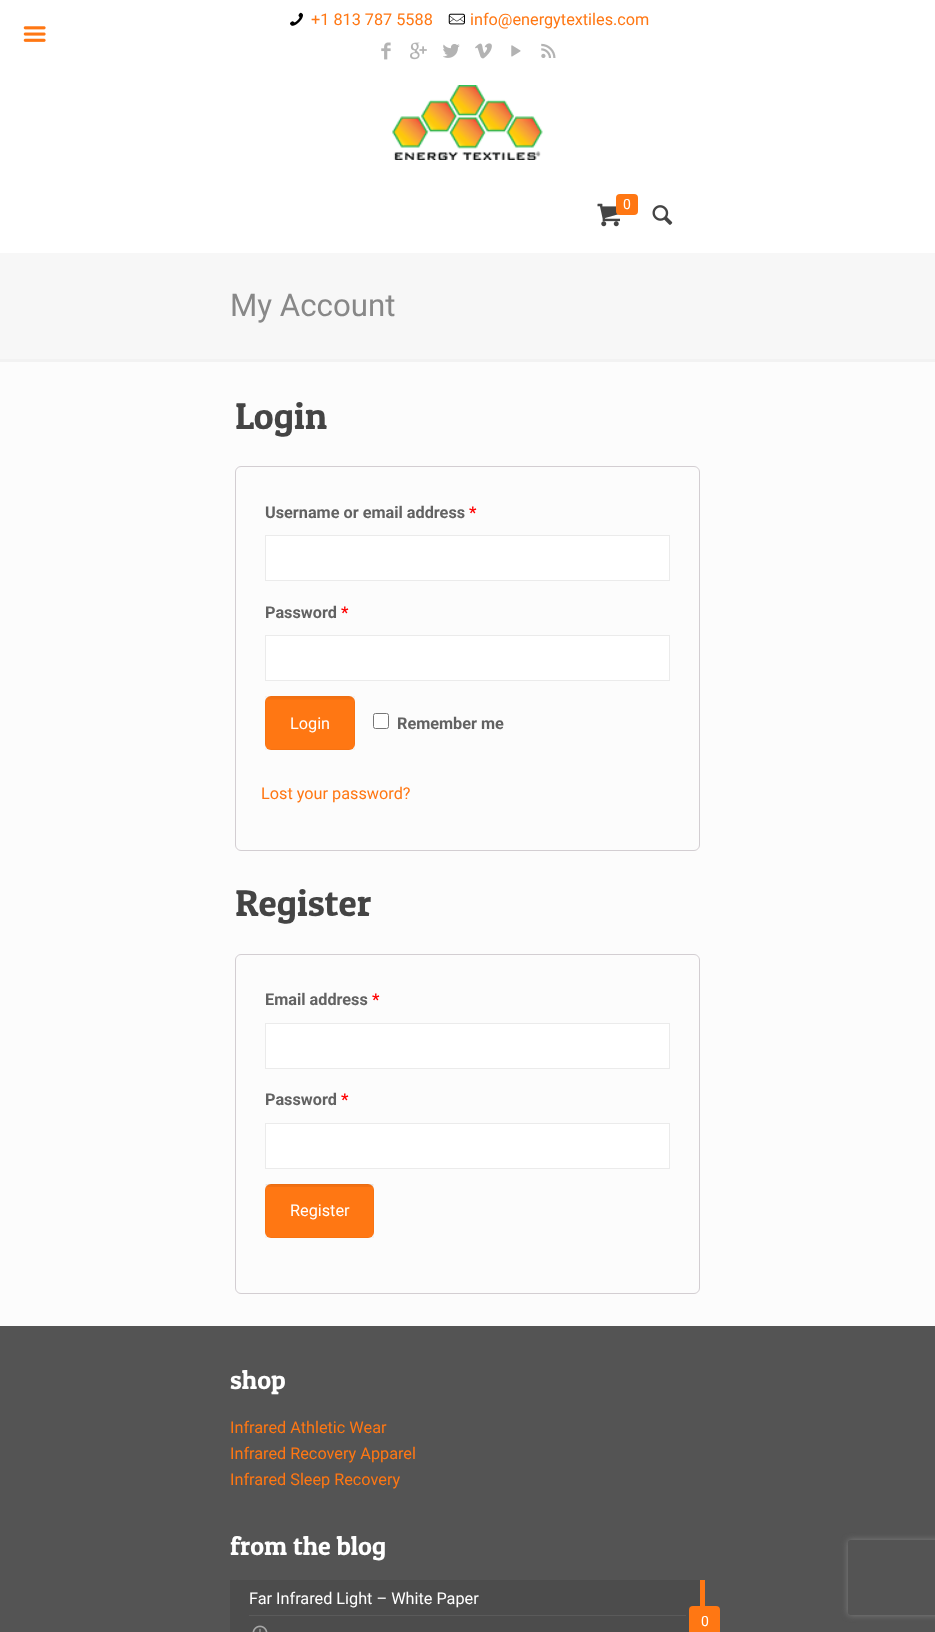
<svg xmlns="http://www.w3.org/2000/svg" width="935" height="1632">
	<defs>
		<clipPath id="clip1"><path d="M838 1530H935V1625H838ZM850.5 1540H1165.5C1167 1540 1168 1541 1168 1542.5V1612.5C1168 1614 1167 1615 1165.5 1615H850.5C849 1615 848 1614 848 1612.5V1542.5C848 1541 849 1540 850.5 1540Z" clip-rule="evenodd" /></clipPath>
	</defs>
	<rect width="100%" height="100%" fill="#FCFCFC" />
	<rect x="0" y="0" width="935" height="253" fill="#FFFFFF" />
	<image x="290" y="12" width="13" height="14" href="assets/img1.png" />
	<text x="311" y="25" font-family="Roboto" font-size="16.25" fill="#FF7713">+1 813 787 5588</text>
	<image x="448" y="13" width="17" height="12" href="assets/img2.png" />
	<text x="470" y="25" font-family="Roboto" font-size="16.25" fill="#FF7713">info@energytextiles.com</text>
	<image x="381" y="42" width="10" height="18" href="assets/img3.png" />
	<image x="410" y="42" width="17" height="18" href="assets/img4.png" />
	<image x="443" y="44" width="17" height="14" href="assets/img5.png" />
	<image x="475" y="43" width="17" height="16" href="assets/img6.png" />
	<image x="511" y="45" width="10" height="12" href="assets/img7.png" />
	<image x="541" y="43" width="15" height="15" href="assets/img8.png" />
	<image x="23" y="26" width="23" height="16" href="assets/img9.png" />
	<image x="392" y="85" width="151" height="75" href="assets/img10.png" />
	<image x="597" y="203" width="23" height="24" href="assets/img11.png" />
	<rect x="616" y="194" width="22" height="21" rx="4" fill="#FF7713" />
	<text x="623" y="209" font-family="Roboto" font-size="14" fill="#FFFFFF">0</text>
	<image x="652" y="205" width="21" height="20" href="assets/img12.png" />
	<rect x="0" y="253" width="935" height="106" fill="#F7F7F7" />
	<text x="230" y="316" font-family="Roboto" font-size="31.25" fill="#888888">My Account</text>
	<rect x="0" y="359" width="935" height="3" fill="#F2F2F2" />
	<text x="235" y="429" font-family="Patua One" font-size="37.5" fill="#444444">Login</text>
	<rect x="235.5" y="466.5" width="464" height="384" rx="5.5" fill="none" stroke="#D3CED2" />
	<text x="265" y="518" font-family="Roboto" font-size="16.25" font-weight="700" fill="#626262">Username or email address</text>
	<text x="469" y="518" font-family="Roboto" font-size="16.25" font-weight="700" fill="#FF0000">*</text>
	<rect x="265.5" y="535.5" width="404" height="45" fill="#FFFFFF" stroke="#EBEBEB" />
	<text x="265" y="618" font-family="Roboto" font-size="16.25" font-weight="700" fill="#626262">Password</text>
	<text x="341" y="618" font-family="Roboto" font-size="16.25" font-weight="700" fill="#FF0000">*</text>
	<rect x="265.5" y="635.5" width="404" height="45" fill="#FFFFFF" stroke="#EBEBEB" />
	<rect x="265" y="696" width="90" height="54" rx="6" fill="#FF7713" />
	<image x="266" y="696" width="88" height="4" href="assets/img13.png" />
	<rect x="265.5" y="696.5" width="89" height="53" fill="none" stroke="#000000" stroke-opacity="0.03" />
	<text x="290" y="729" font-family="Roboto" font-size="16.25" fill="#FFFFFF">Login</text>
	<rect x="373.5" y="713.5" width="15" height="15" rx="2" fill="#FFFFFF" stroke="#767676" />
	<text x="397" y="729" font-family="Roboto" font-size="16.25" font-weight="700" fill="#626262">Remember me</text>
	<text x="261" y="799" font-family="Roboto" font-size="16.25" fill="#FF7713">Lost your password?</text>
	<text x="235" y="916" font-family="Patua One" font-size="37.5" fill="#444444">Register</text>
	<rect x="235.5" y="954.5" width="464" height="339" rx="5.5" fill="none" stroke="#D3CED2" />
	<text x="265" y="1005" font-family="Roboto" font-size="16.25" font-weight="700" fill="#626262">Email address</text>
	<text x="372" y="1005" font-family="Roboto" font-size="16.25" font-weight="700" fill="#FF0000">*</text>
	<rect x="265.5" y="1023.5" width="404" height="45" fill="#FFFFFF" stroke="#EBEBEB" />
	<text x="265" y="1105" font-family="Roboto" font-size="16.25" font-weight="700" fill="#626262">Password</text>
	<text x="341" y="1105" font-family="Roboto" font-size="16.25" font-weight="700" fill="#FF0000">*</text>
	<rect x="265.5" y="1123.5" width="404" height="45" fill="#FFFFFF" stroke="#EBEBEB" />
	<rect x="265" y="1184" width="109" height="54" rx="6" fill="#FF7713" />
	<rect x="266" y="1184" width="107" height="3" fill="#000000" fill-opacity="0.05" />
	<rect x="265.5" y="1184.5" width="108" height="53" fill="none" stroke="#000000" stroke-opacity="0.03" />
	<text x="290" y="1216" font-family="Roboto" font-size="16.25" fill="#FFFFFF">Register</text>
	<rect x="0" y="1326" width="935" height="306" fill="#545454" />
	<text x="230" y="1389" font-family="Patua One" font-size="26.25" fill="#FFFFFF">shop</text>
	<g font-family="Roboto" font-size="16.25" fill="#FF7713">
		<text x="230" y="1433">Infrared Athletic Wear</text>
		<text x="230" y="1459">Infrared Recovery Apparel</text>
		<text x="230" y="1485">Infrared Sleep Recovery</text>
	</g>
	<text x="230" y="1555" font-family="Patua One" font-size="26.25" fill="#FFFFFF">from the blog</text>
	<rect x="230" y="1580" width="470" height="52" fill="#4C4C4C" />
	<rect x="249" y="1615" width="437" height="1" fill="#5A5A5A" />
	<text x="249" y="1604" font-family="Roboto" font-size="16.25" fill="#FFFFFF">Far Infrared Light – White Paper</text>
	<rect x="700" y="1580" width="5" height="26" fill="#FF7713" />
	<image x="252" y="1625" width="16" height="7" href="assets/img14.png" />
	<rect x="689" y="1606" width="31" height="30" rx="4" fill="#FF7713" />
	<text x="701" y="1626" font-family="Roboto" font-size="14" fill="#FFFFFF">0</text>
	<g clip-path="url(#clip1)">
		<rect x="848" y="1540" width="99" height="75" rx="2.5" fill="#808080" filter="blur(3px)" />
	</g>
</svg>
